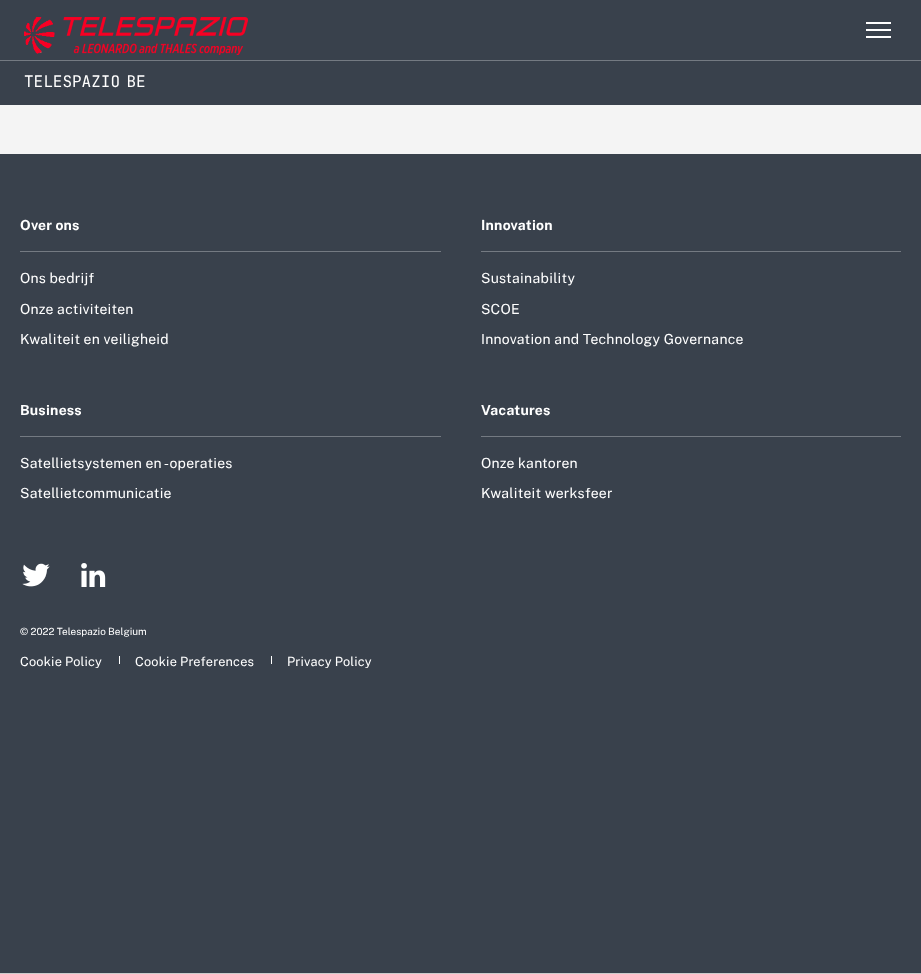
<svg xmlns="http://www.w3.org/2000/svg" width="921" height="974">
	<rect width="100%" height="100%" fill="#39414C" />
	<image x="24" y="17" width="224" height="38" href="assets/img1.png" />
	<rect x="866" y="22" width="25" height="2" fill="#FFFFFF" />
	<rect x="866" y="29" width="25" height="2" fill="#FFFFFF" />
	<rect x="866" y="36" width="25" height="2" fill="#FFFFFF" />
	<rect x="0" y="60" width="921" height="1" fill="#747A82" />
	<text x="24" y="87" font-family="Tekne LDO" font-size="16" fill="#FFFFFF">TELESPAZIO BE</text>
	<rect x="0" y="105" width="921" height="49" fill="#F4F4F4" />
	<rect x="20" y="251" width="421" height="1" fill="#747A82" />
	<text x="20" y="230" font-family="Public Sans" font-size="14" font-weight="100" letter-spacing="0.25" fill="#FFFFFF">Over ons</text>
	<g font-family="'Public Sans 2'" font-size="14" font-weight="100" letter-spacing="0.25" fill="#FFFFFF">
		<text x="20" y="283">Ons bedrijf</text>
		<text x="20" y="314">Onze activiteiten</text>
		<text x="20" y="344">Kwaliteit en veiligheid</text>
	</g>
	<rect x="481" y="251" width="420" height="1" fill="#747A82" />
	<text x="481" y="230" font-family="Public Sans" font-size="14" font-weight="100" letter-spacing="0.25" fill="#FFFFFF">Innovation</text>
	<g font-family="'Public Sans 2'" font-size="14" font-weight="100" letter-spacing="0.25" fill="#FFFFFF">
		<text x="481" y="283">Sustainability</text>
		<text x="481" y="314">SCOE</text>
		<text x="481" y="344">Innovation and Technology Governance</text>
	</g>
	<rect x="20" y="436" width="421" height="1" fill="#747A82" />
	<text x="20" y="415" font-family="Public Sans" font-size="14" font-weight="100" letter-spacing="0.25" fill="#FFFFFF">Business</text>
	<g font-family="'Public Sans 2'" font-size="14" font-weight="100" letter-spacing="0.25" fill="#FFFFFF">
		<text x="20" y="468">Satellietsystemen en -operaties</text>
		<text x="20" y="498">Satellietcommunicatie</text>
	</g>
	<rect x="481" y="436" width="420" height="1" fill="#747A82" />
	<text x="481" y="415" font-family="Public Sans" font-size="14" font-weight="100" letter-spacing="0.25" fill="#FFFFFF">Vacatures</text>
	<g font-family="'Public Sans 2'" font-size="14" font-weight="100" letter-spacing="0.25" fill="#FFFFFF">
		<text x="481" y="468">Onze kantoren</text>
		<text x="481" y="498">Kwaliteit werksfeer</text>
	</g>
	<image x="22" y="563" width="28" height="24" href="assets/img2.png" />
	<image x="81" y="563" width="25" height="24" href="assets/img3.png" />
	<text x="20" y="635" font-family="'Public Sans 2'" font-size="10" font-weight="100" fill="#FFFFFF">© 2022 Telespazio Belgium</text>
	<text x="20" y="666" font-family="'Public Sans 2'" font-size="12.75" font-weight="100" letter-spacing="0.2" fill="#FFFFFF">Cookie Policy</text>
	<rect x="119" y="656" width="1" height="8" fill="#FFFFFF" />
	<text x="135" y="666" font-family="'Public Sans 2'" font-size="12.75" font-weight="100" letter-spacing="0.2" fill="#FFFFFF">Cookie Preferences</text>
	<rect x="271" y="656" width="1" height="8" fill="#FFFFFF" />
	<text x="287" y="666" font-family="'Public Sans 2'" font-size="12.75" font-weight="100" letter-spacing="0.2" fill="#FFFFFF">Privacy Policy</text>
	<rect x="0" y="973" width="921" height="1" fill="#CCCCCC" />
</svg>
